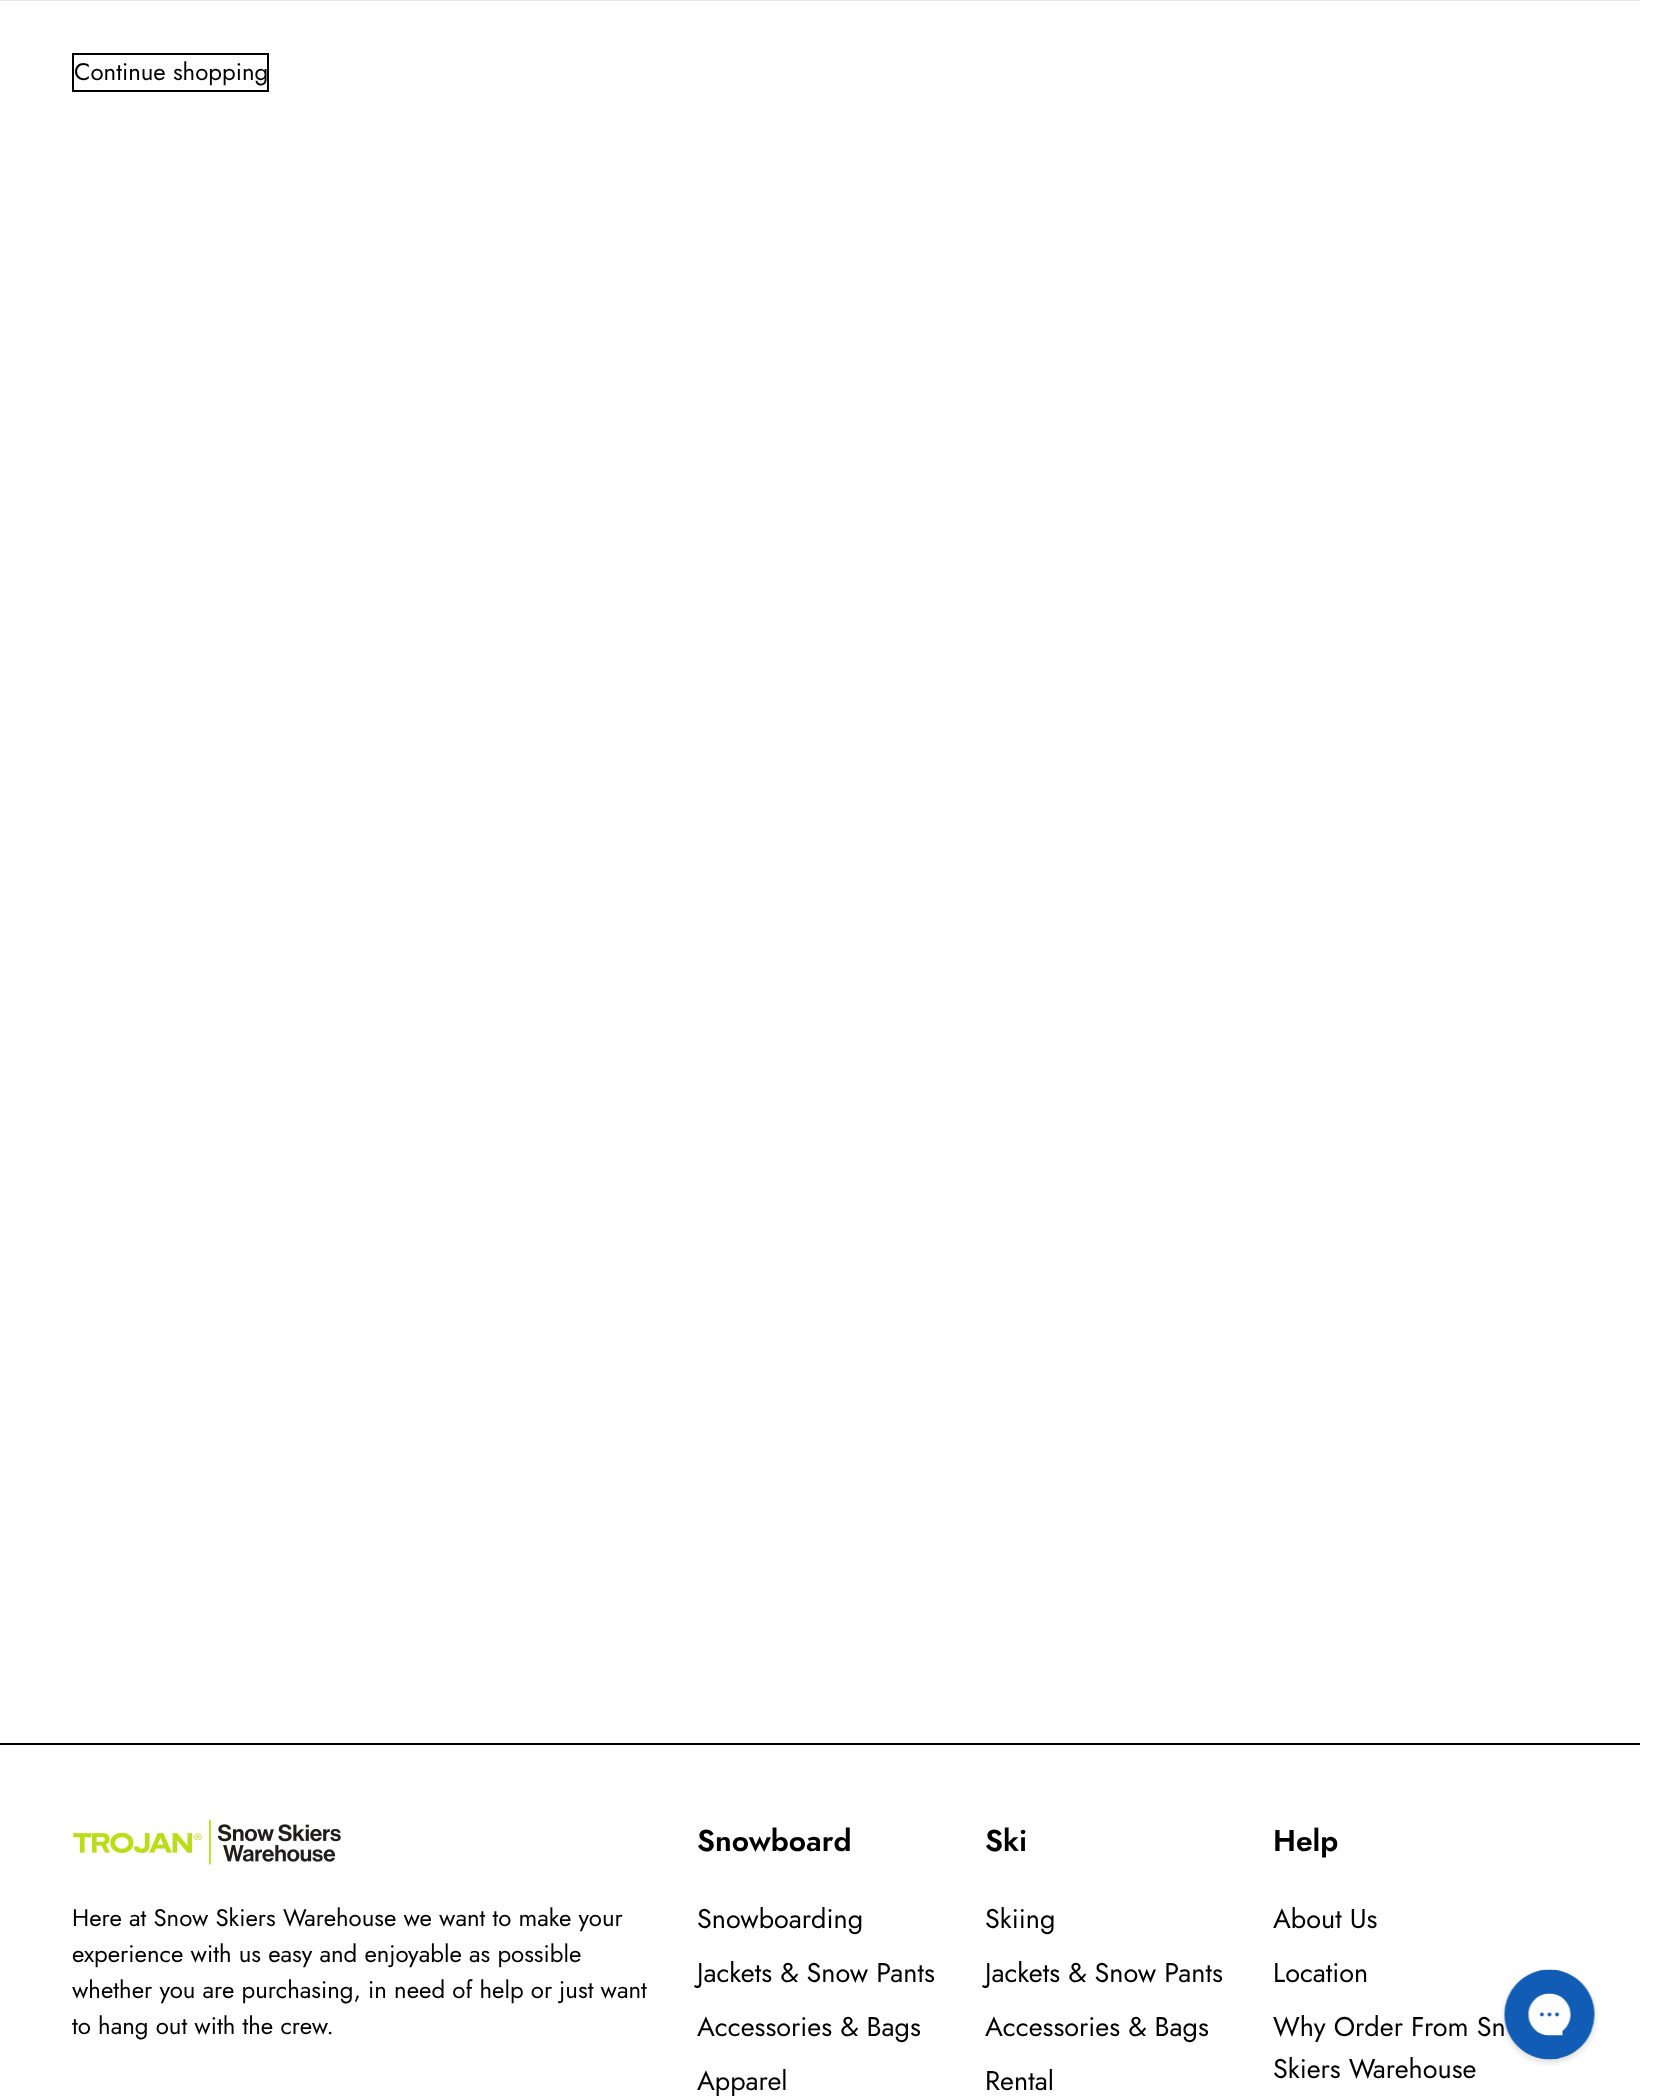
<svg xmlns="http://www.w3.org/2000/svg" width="1661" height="2100">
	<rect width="100%" height="100%" fill="#FFFFFF" />
	<rect x="0" y="0" width="1640" height="1" fill="#E5E7EB" />
	<rect x="73" y="54" width="195" height="37" fill="none" stroke="#000000" stroke-width="2" />
	<text x="74" y="80" font-family="Jost" font-size="24" fill="#000000">Continue shopping</text>
	<rect x="0" y="1743" width="1640" height="2" fill="#000000" />
	<image x="73" y="1820" width="268" height="45" href="assets/img1.png" />
	<g font-family="Jost" font-size="24" fill="#000000">
		<text x="72" y="1926">Here at Snow Skiers Warehouse we want to make your</text>
		<text x="72" y="1962">experience with us easy and enjoyable as possible</text>
		<text x="72" y="1998">whether you are purchasing, in need of help or just want</text>
		<text x="72" y="2034">to hang out with the crew.</text>
	</g>
	<text x="697" y="1851" font-family="Jost" font-size="30" font-weight="600" fill="#000000">Snowboard</text>
	<g font-family="Jost" font-size="27" fill="#000000">
		<text x="697" y="1928">Snowboarding</text>
		<text x="697" y="1982">Jackets &amp; Snow Pants</text>
		<text x="697" y="2036">Accessories &amp; Bags</text>
		<text x="697" y="2090">Apparel</text>
	</g>
	<text x="985" y="1851" font-family="Jost" font-size="30" font-weight="600" fill="#000000">Ski</text>
	<g font-family="Jost" font-size="27" fill="#000000">
		<text x="985" y="1928">Skiing</text>
		<text x="985" y="1982">Jackets &amp; Snow Pants</text>
		<text x="985" y="2036">Accessories &amp; Bags</text>
		<text x="985" y="2090">Rental</text>
	</g>
	<text x="1273" y="1851" font-family="Jost" font-size="30" font-weight="600" fill="#000000">Help</text>
	<g font-family="Jost" font-size="27" fill="#000000">
		<text x="1273" y="1928">About Us</text>
		<text x="1273" y="1982">Location</text>
		<text x="1273" y="2036">Why Order From Sn</text>
		<text x="1273" y="2078">Skiers Warehouse</text>
	</g>
	<image x="1501" y="1969" width="97" height="97" href="assets/img2.png" />
</svg>
